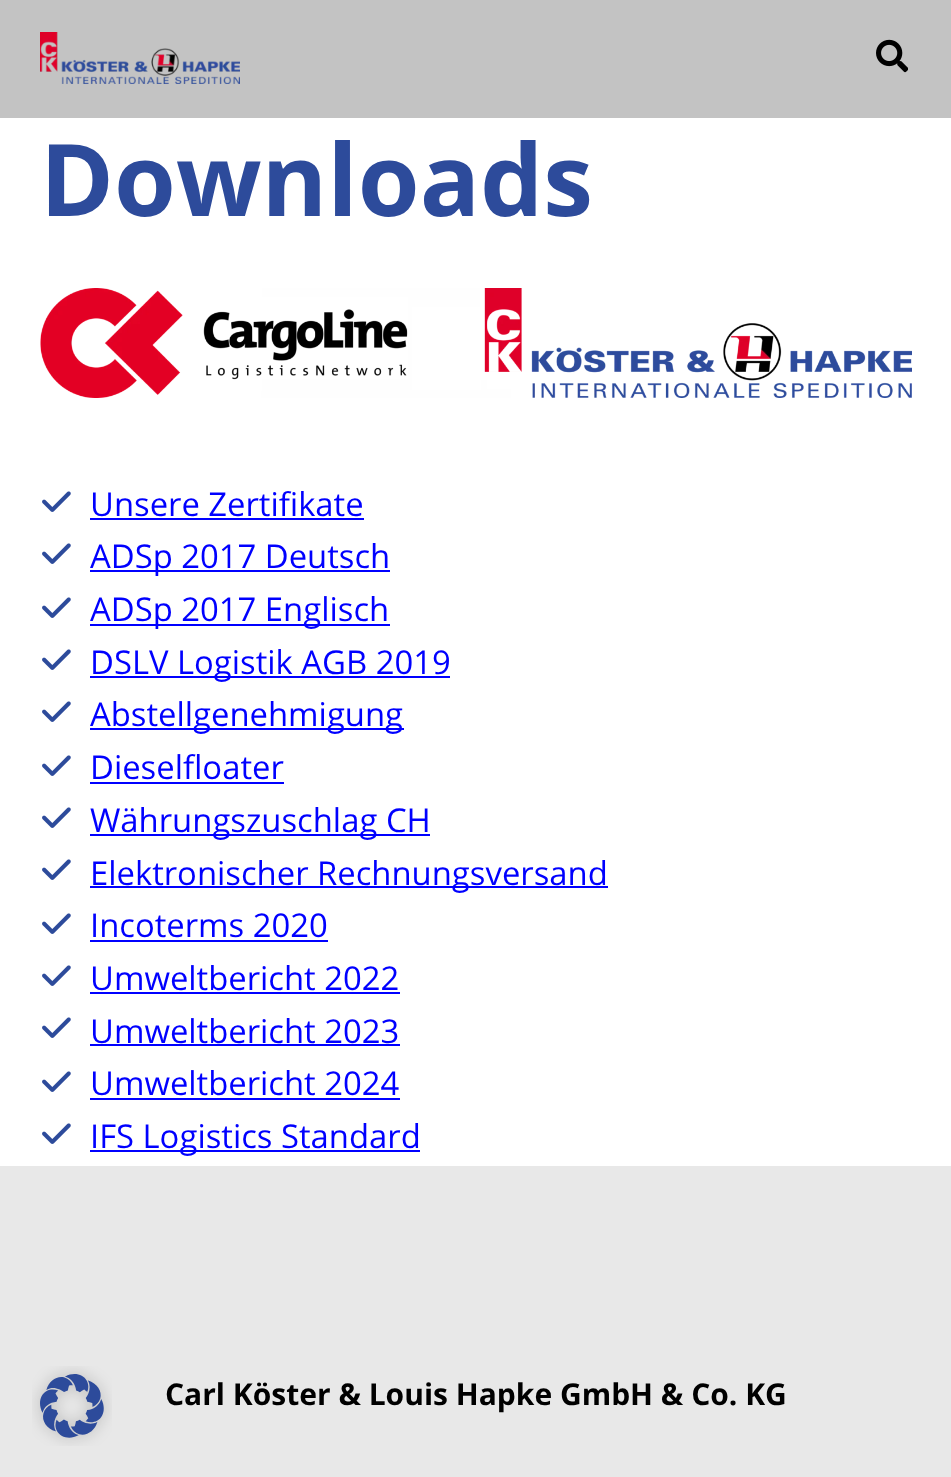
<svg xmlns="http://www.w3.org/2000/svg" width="951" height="1477">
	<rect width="100%" height="100%" fill="#FFFFFF" />
	<rect x="0" y="0" width="951" height="118" fill="#C3C3C3" />
	<image x="40" y="32" width="200" height="52" href="assets/img1.png" />
	<image x="876" y="39" width="32" height="34" href="assets/img2.png" />
	<text x="40" y="216" font-family="Open Sans" font-size="100" font-weight="700" fill="#2D4B9B">Downloads</text>
	<image x="40" y="288" width="872" height="110" href="assets/img3.png" />
	<image x="42" y="491" width="29" height="21" href="assets/img4.png" />
	<text x="90" y="516" font-family="Open Sans" font-size="32.8" fill="#0000FF">Unsere Zertifikate</text>
	<rect x="90" y="518" width="274" height="2" fill="#0000FF" />
	<image x="42" y="543" width="29" height="21" href="assets/img4.png" />
	<rect x="90" y="570" width="300" height="2" fill="#0000FF" />
	<text x="90" y="568" font-family="Open Sans" font-size="32.8" fill="#0000FF">ADSp 2017 Deutsch</text>
	<image x="42" y="597" width="29" height="21" href="assets/img4.png" />
	<rect x="90" y="624" width="300" height="2" fill="#0000FF" />
	<text x="90" y="621" font-family="Open Sans" font-size="32.8" fill="#0000FF">ADSp 2017 Englisch</text>
	<image x="42" y="649" width="29" height="21" href="assets/img4.png" />
	<rect x="90" y="676" width="360" height="2" fill="#0000FF" />
	<text x="90" y="674" font-family="Open Sans" font-size="32.8" fill="#0000FF">DSLV Logistik AGB 2019</text>
	<image x="42" y="701" width="29" height="21" href="assets/img4.png" />
	<rect x="90" y="728" width="314" height="2" fill="#0000FF" />
	<text x="90" y="726" font-family="Open Sans" font-size="32.8" fill="#0000FF">Abstellgenehmigung</text>
	<image x="42" y="755" width="29" height="21" href="assets/img4.png" />
	<text x="90" y="779" font-family="Open Sans" font-size="32.8" fill="#0000FF">Dieselfloater</text>
	<rect x="90" y="782" width="194" height="2" fill="#0000FF" />
	<image x="42" y="807" width="29" height="21" href="assets/img4.png" />
	<rect x="90" y="834" width="340" height="2" fill="#0000FF" />
	<text x="90" y="832" font-family="Open Sans" font-size="32.8" fill="#0000FF">Währungszuschlag CH</text>
	<image x="42" y="859" width="29" height="21" href="assets/img4.png" />
	<rect x="90" y="886" width="518" height="2" fill="#0000FF" />
	<text x="90" y="885" font-family="Open Sans" font-size="32.8" fill="#0000FF">Elektronischer Rechnungsversand</text>
	<image x="42" y="913" width="29" height="21" href="assets/img4.png" />
	<text x="90" y="937" font-family="Open Sans" font-size="32.8" fill="#0000FF">Incoterms 2020</text>
	<rect x="90" y="940" width="238" height="2" fill="#0000FF" />
	<image x="42" y="965" width="29" height="21" href="assets/img4.png" />
	<text x="90" y="990" font-family="Open Sans" font-size="32.8" fill="#0000FF">Umweltbericht 2022</text>
	<rect x="90" y="992" width="310" height="2" fill="#0000FF" />
	<image x="42" y="1017" width="29" height="21" href="assets/img4.png" />
	<text x="90" y="1043" font-family="Open Sans" font-size="32.8" fill="#0000FF">Umweltbericht 2023</text>
	<rect x="90" y="1044" width="310" height="2" fill="#0000FF" />
	<image x="42" y="1071" width="29" height="21" href="assets/img4.png" />
	<text x="90" y="1095" font-family="Open Sans" font-size="32.8" fill="#0000FF">Umweltbericht 2024</text>
	<rect x="90" y="1098" width="310" height="2" fill="#0000FF" />
	<image x="42" y="1123" width="29" height="21" href="assets/img4.png" />
	<rect x="90" y="1150" width="330" height="2" fill="#0000FF" />
	<text x="90" y="1148" font-family="Open Sans" font-size="32.8" fill="#0000FF">IFS Logistics Standard</text>
	<rect x="0" y="1166" width="951" height="311" fill="#E8E8E8" />
	<image x="32" y="1366" width="80" height="80" href="assets/img5.png" />
	<text x="165" y="1405" font-family="Open Sans" font-size="30" font-weight="700" fill="#000000">Carl Köster &amp; Louis Hapke GmbH &amp; Co. KG</text>
</svg>
